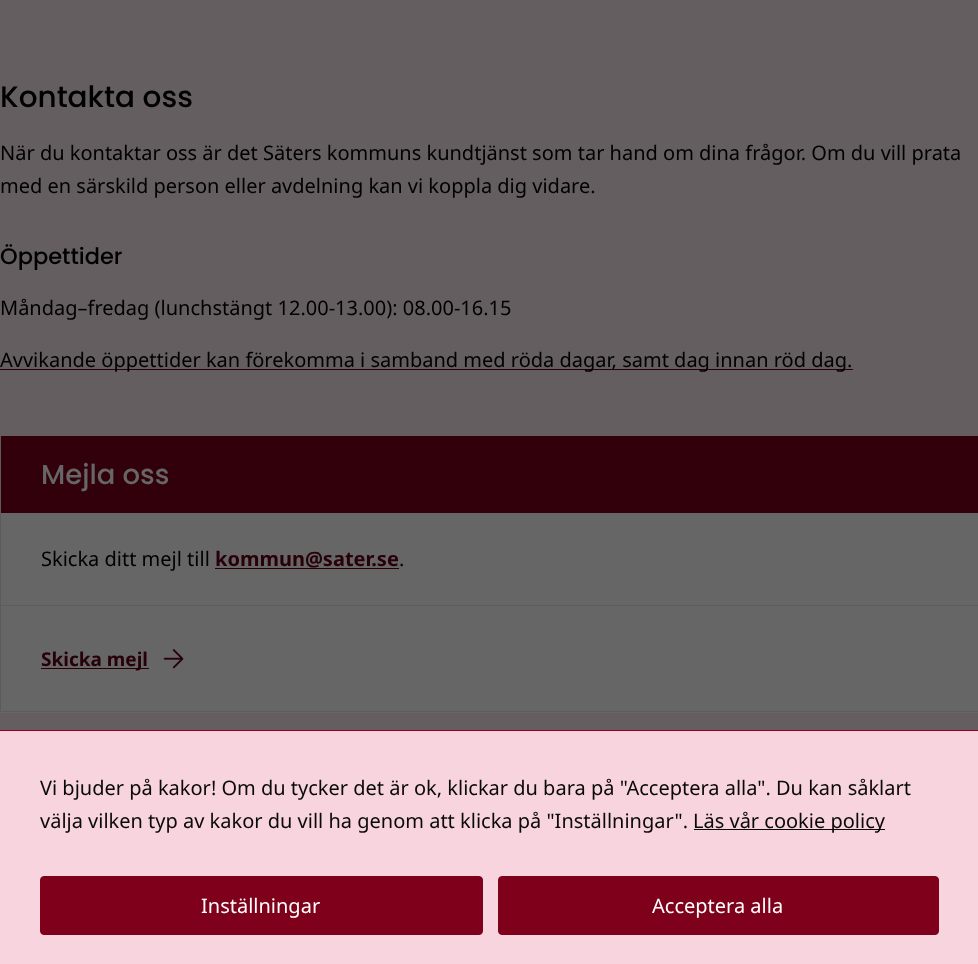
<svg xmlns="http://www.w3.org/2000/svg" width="978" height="964">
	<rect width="100%" height="100%" fill="#645E60" />
	<text x="0" y="107" font-family="Poppins" font-size="29.5" font-weight="500" fill="#000000">Kontakta oss</text>
	<g font-family="Noto Sans" font-size="20" fill="#000000">
		<text x="0" y="160">När du kontaktar oss är det Säters kommuns kundtjänst som tar hand om dina frågor. Om du vill prata</text>
		<text x="0" y="193">med en särskild person eller avdelning kan vi koppla dig vidare.</text>
	</g>
	<text x="0" y="264" font-family="Poppins" font-size="22.5" font-weight="500" fill="#000000">Öppettider</text>
	<text x="0" y="315" font-family="Noto Sans" font-size="20" fill="#000000">Måndag–fredag (lunchstängt 12.00-13.00): 08.00-16.15</text>
	<rect x="0" y="369" width="853" height="1" fill="#27000A" />
	<text x="0" y="367" font-family="Noto Sans" font-size="20" fill="#000000">Avvikande öppettider kan förekomma i samband med röda dagar, samt dag innan röd dag.</text>
	<rect x="0" y="436" width="978" height="277" fill="#666666" />
	<path d="M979 712H0L1 711H978Z" fill="#5C5C5C" />
	<path d="M0 712V436H1V711Z" fill="#000000" fill-opacity="0.1" />
	<rect x="1" y="436" width="977" height="77" fill="#32000B" />
	<text x="41" y="484" font-family="Poppins" font-size="27.5" font-weight="500" fill="#666666">Mejla oss</text>
	<text x="41" y="566" font-family="Noto Sans" font-size="20" fill="#000000">Skicka ditt mejl till</text>
	<text x="215" y="566" font-family="Noto Sans" font-size="20" font-weight="700" fill="#27000A">kommun@sater.se</text>
	<rect x="215" y="568" width="184" height="1" fill="#27000A" />
	<text x="399" y="566" font-family="Noto Sans" font-size="20" fill="#000000">.</text>
	<rect x="1" y="605" width="977" height="1" fill="#5C5C5C" />
	<rect x="41" y="668" width="108" height="1" fill="#27000A" />
	<text x="41" y="666" font-family="Noto Sans" font-size="19" font-weight="700" fill="#27000A">Skicka mejl</text>
	<image x="163" y="649" width="21" height="20" href="assets/img1.png" />
	<rect x="0" y="731" width="978" height="233" fill="#F8D5DE" />
	<rect x="0" y="730" width="978" height="1" fill="#950024" />
	<g font-family="Noto Sans" font-size="20" fill="#0A0A0A">
		<text x="40" y="795">Vi bjuder på kakor! Om du tycker det är ok, klickar du bara på "Acceptera alla". Du kan såklart</text>
		<text x="40" y="828">välja vilken typ av kakor du vill ha genom att klicka på "Inställningar".</text>
	</g>
	<rect x="694" y="829" width="191" height="1" fill="#0A0A0A" />
	<text x="693" y="828" font-family="Noto Sans" font-size="20" fill="#0A0A0A">Läs vår cookie policy</text>
	<rect x="40.5" y="876.5" width="442" height="58" rx="3.5" fill="#7E001B" stroke="#7E001B" />
	<text x="201" y="913" font-family="Noto Sans" font-size="20" fill="#FFFFFF">Inställningar</text>
	<rect x="498.5" y="876.5" width="440" height="58" rx="3.5" fill="#7E001B" stroke="#7E001B" />
	<text x="652" y="913" font-family="Noto Sans" font-size="20" fill="#FFFFFF">Acceptera alla</text>
</svg>
